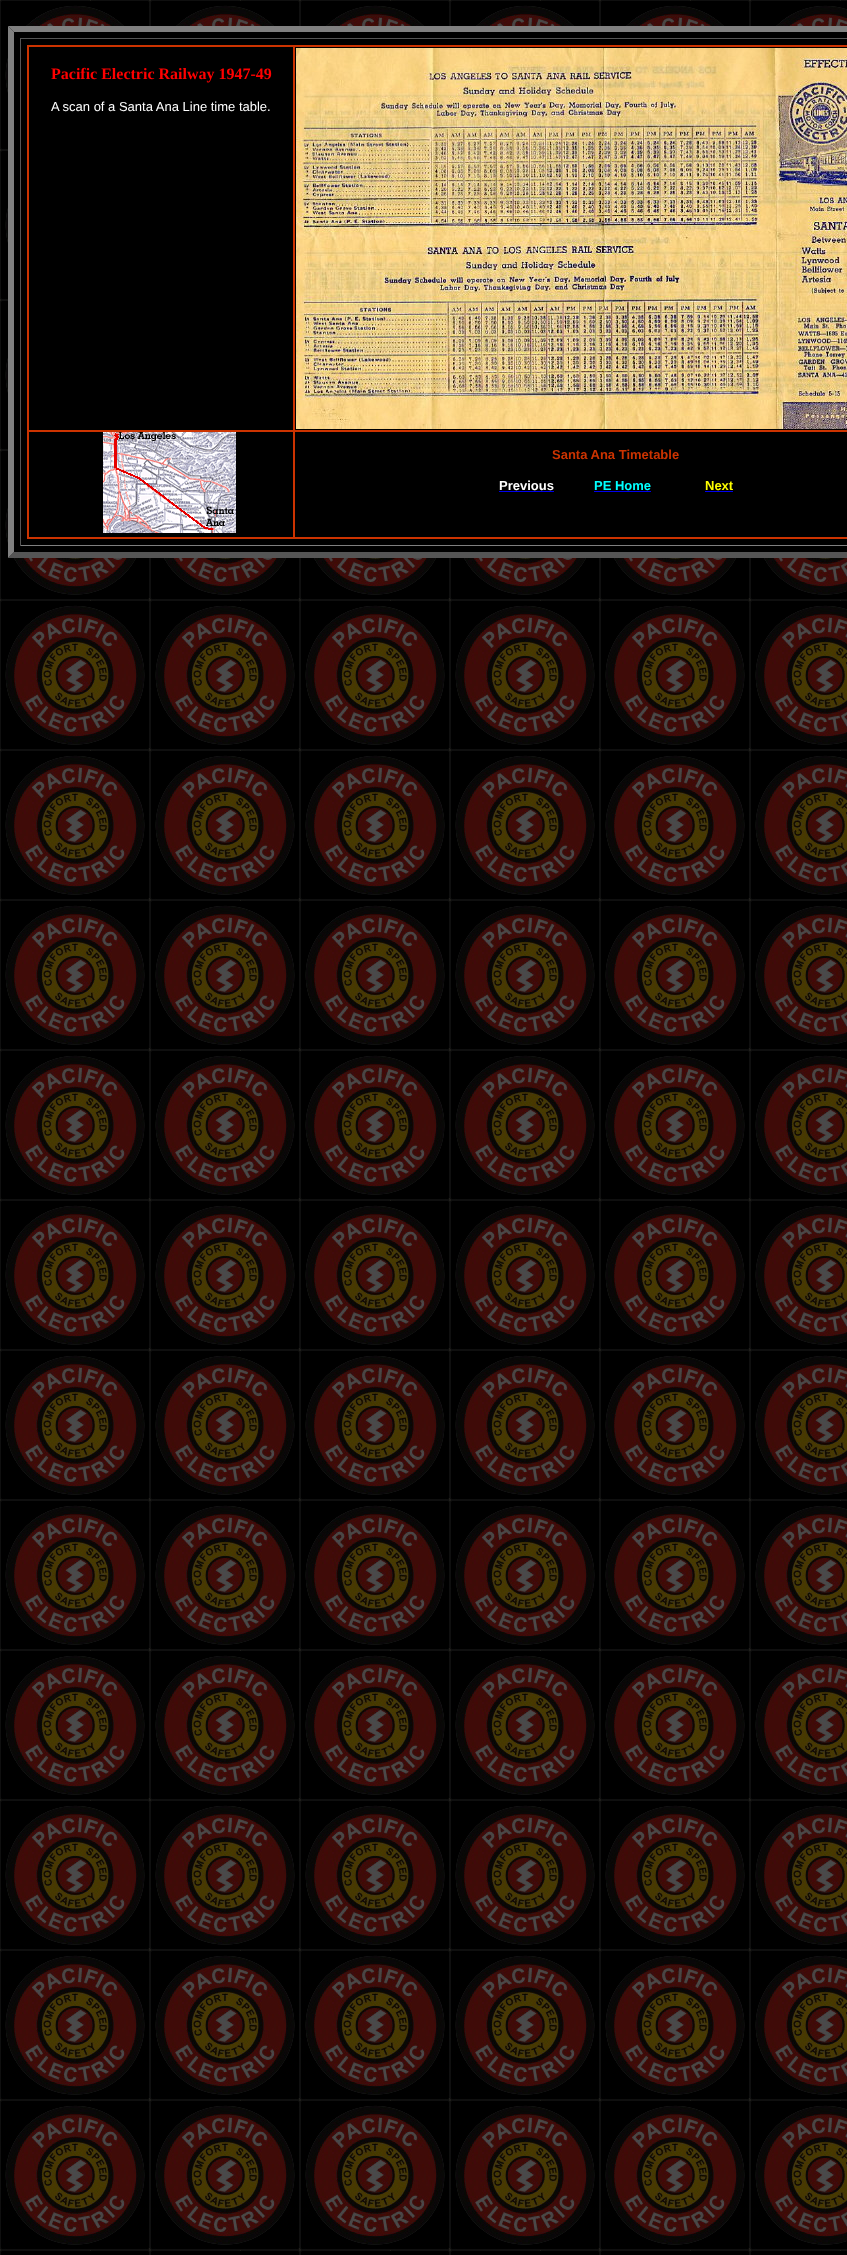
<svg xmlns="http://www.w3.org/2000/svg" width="847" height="2255">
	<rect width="100%" height="100%" fill="#FFFFFF" />
	<image x="0" y="0" width="847" height="2255" href="assets/img1.png" />
	<rect x="8" y="26" width="839" height="532" fill="#000000" />
	<path d="M8 26H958L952 32H14Z" fill="#808080" />
	<path d="M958 558H8L14 552H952Z" fill="#555555" />
	<path d="M8 558V26L14 32V552Z" fill="#808080" />
	<rect x="20" y="38" width="827" height="1" fill="#555555" />
	<rect x="20" y="545" width="827" height="1" fill="#808080" />
	<rect x="20" y="38" width="1" height="508" fill="#555555" />
	<rect x="27.5" y="45.5" width="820" height="493" fill="none" stroke="#CC3300" />
	<rect x="28.5" y="46.5" width="265" height="384" fill="none" stroke="#CC3300" />
	<text x="51" y="79" font-family="Liberation Serif" font-size="16" font-weight="700" fill="#FF0000">Pacific Electric Railway 1947-49</text>
	<text x="51" y="111" font-family="Liberation Sans" font-size="13" fill="#FFFFFF">A scan of a Santa Ana Line time table.</text>
	<rect x="294.5" y="46.5" width="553" height="384" fill="none" stroke="#CC3300" />
	<image x="296" y="48" width="551" height="381" href="assets/img2.png" />
	<rect x="28.5" y="431.5" width="265" height="106" fill="none" stroke="#CC3300" />
	<image x="103" y="432" width="133" height="101" href="assets/img3.png" />
	<rect x="294.5" y="431.5" width="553" height="106" fill="none" stroke="#CC3300" />
	<text x="552" y="459" font-family="Liberation Sans" font-size="13" font-weight="700" fill="#CC3300">Santa Ana Timetable</text>
	<text x="499" y="490" font-family="Liberation Sans" font-size="13" font-weight="700" fill="#FFFFFF">Previous</text>
	<rect x="499" y="491" width="55" height="1" fill="#0000EE" />
	<text x="594" y="490" font-family="Liberation Sans" font-size="13" font-weight="700" fill="#00FFFF">PE Home</text>
	<rect x="594" y="491" width="57" height="1" fill="#0000EE" />
	<text x="705" y="490" font-family="Liberation Sans" font-size="13" font-weight="700" fill="#FFFF00">Next</text>
	<rect x="705" y="491" width="28" height="1" fill="#0000EE" />
</svg>
